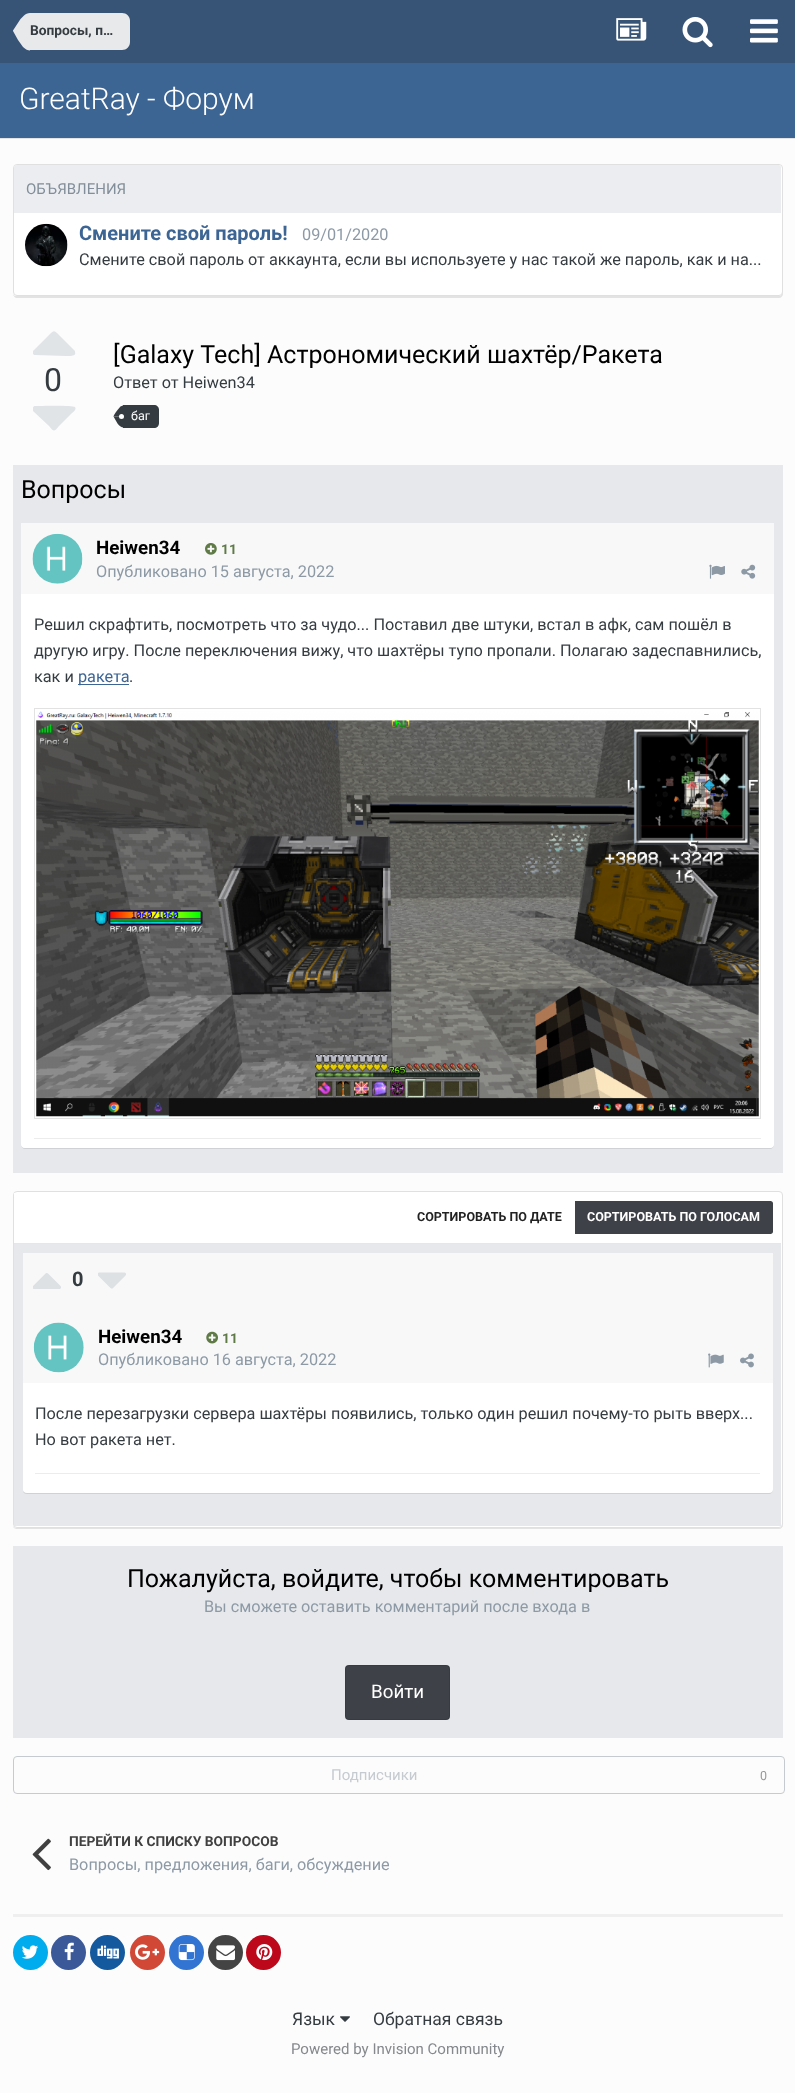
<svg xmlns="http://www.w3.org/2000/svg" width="795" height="2093">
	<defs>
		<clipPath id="clip1"><rect x="33" y="321" width="43" height="38" /></clipPath>
		<clipPath id="clip2"><rect x="33" y="399" width="43" height="37" /></clipPath>
	</defs>
	<rect width="100%" height="100%" fill="#FCFCFC" />
	<rect x="0" y="138" width="795" height="1" fill="#E3E3E3" />
	<rect x="0" y="0" width="795" height="63" fill="#375476" />
	<path d="M30 13H122C126.5 13 130 16.5 130 21V42C130 46.5 126.5 50 122 50H30Z" fill="#E8E9EB" />
	<path d="M13 31H30V50.5C28 50.5 25.5 49.5 23 47L18 40ZM30 13V31H13V30.5L20.5 19L24 15.5C25.5 14 27.5 13 30 13Z" fill="#E8E9EB" />
	<text x="30" y="35" font-family="Roboto" font-size="13.75" font-weight="700" fill="#353C41">Вопросы, п…</text>
	<image x="616" y="18" width="31" height="23" href="assets/img1.png" />
	<image x="682" y="17" width="31" height="31" href="assets/img2.png" />
	<image x="750" y="19" width="28" height="24" href="assets/img3.png" />
	<rect x="0" y="63" width="795" height="75" fill="#3D6594" />
	<text x="19" y="109" font-family="Roboto" font-size="30" font-weight="300" fill="#FFFFFF">GreatRay - Форум</text>
	<path d="M13 294C13 296 15 298 17 298H779C781 298 783 296 783 294V169L782 167V292C782 295 781 296 779 296H16C15 296 14 296 13 294Z" fill="#E3E3E3" />
	<rect x="13.5" y="164.5" width="769" height="131" rx="3.5" fill="#FFFFFF" stroke="#E0E0E0" />
	<path d="M16.5 165H778.5C780 165 781 166 781 167.5V213H14V167.5C14 166 15 165 16.5 165Z" fill="#EBEDF0" />
	<text x="26" y="194" font-family="Roboto" font-size="15" fill="#828E99">ОБЪЯВЛЕНИЯ</text>
	<image x="25" y="223" width="43" height="44" href="assets/img4.png" />
	<text x="79" y="240" font-family="Roboto" font-size="20" font-weight="700" fill="#3D6594">Смените свой пароль!</text>
	<text x="302" y="240" font-family="Roboto" font-size="16.25" fill="#8D9AA6">09/01/2020</text>
	<text x="79" y="265" font-family="Roboto" font-size="16.25" fill="#353C41">Смените свой пароль от аккаунта, если вы используете у нас такой же пароль, как и на...</text>
	<g clip-path="url(#clip1)">
		<path d="M75 351V352C77 357 67 356 66 356L35 355C33 355 32 352 33 351L49 335C54 330 54 330 59 335Z" fill="#E0E4E7" />
	</g>
	<text x="44" y="391" font-family="Roboto" font-size="32" fill="#353C41">0</text>
	<g clip-path="url(#clip2)">
		<path d="M75 407C77 410 73 412 71 414L59 426C54 432 54 432 49 426L33 411C32 409 33 406 35 406C39 406 73 405 75 407Z" fill="#E0E4E7" />
	</g>
	<text x="113" y="363" font-family="Roboto" font-size="25" fill="#000000">[Galaxy Tech] Астрономический шахтёр/Ракета</text>
	<text x="113" y="388" font-family="Roboto" font-size="16.25" fill="#353C41">Ответ от Heiwen34</text>
	<path d="M123 405H154C157 405 159 407 159 410V423C159 426 157 428 154 428H123Z" fill="#353C41" />
	<path d="M117.5 423.5L113.5 416.5H124L123.5 417H124V427.5C121 427.5 119 425.5 117.5 423.5Z" fill="#353C41" />
	<path d="M124 405.5V416.5H113.5C113.5 415 119 408 120 407C121 406 122.5 405.5 124 405.5Z" fill="#353C41" />
	<text x="131" y="420" font-family="Roboto" font-size="12.5" fill="#FFFFFF">баг</text>
	<circle cx="121.5" cy="416.5" r="2.5" fill="#FFFFFF" />
	<rect x="13" y="465" width="770" height="708" fill="#E6E8EB" />
	<text x="21" y="498" font-family="Roboto" font-size="25" fill="#000000">Вопросы</text>
	<path d="M21 527V1145C21 1147 23 1149 25 1149H770C772 1149 774 1147 774 1145V527V1144C774 1146 772 1148 770 1148H25C23 1148 21 1146 21 1144Z" fill="#CFD1D4" />
	<rect x="21" y="523" width="753" height="625" rx="4" fill="#FFFFFF" />
	<rect x="21" y="523" width="753" height="71" fill="#F8F8F8" />
	<circle cx="58" cy="559" r="25" fill="#FFFFFF" />
	<image x="32" y="533" width="51" height="51" href="assets/img5.png" />
	<text x="96" y="554" font-family="Roboto" font-size="18.75" font-weight="700" fill="#000000">Heiwen34</text>
	<image x="205" y="543" width="12" height="12" href="assets/img6.png" />
	<text x="221" y="554" font-family="Roboto" font-size="13.75" font-weight="700" fill="#5F7A47">11</text>
	<text x="96" y="577" font-family="Roboto" font-size="16.25" fill="#8D9AA6">Опубликовано 15 августа, 2022</text>
	<image x="709" y="564" width="16" height="15" href="assets/img7.png" />
	<image x="741" y="564" width="15" height="15" href="assets/img8.png" />
	<g font-family="Roboto" font-size="16.25" fill="#353C41">
		<text x="34" y="630">Решил скрафтить, посмотреть что за чудо... Поставил две штуки, встал в афк, сам пошёл в</text>
		<text x="34" y="656">другую игру. После переключения вижу, что шахтёры тупо пропали. Полагаю задеспавнились,</text>
		<text x="34" y="682">как и</text>
	</g>
	<rect x="78" y="684" width="51" height="1" fill="#3D6594" />
	<text x="78" y="682" font-family="Roboto" font-size="16.25" fill="#3D6594">ракета</text>
	<text x="129" y="682" font-family="Roboto" font-size="16.25" fill="#353C41">.</text>
	<rect x="34.5" y="708.5" width="726" height="410" fill="none" stroke="#E2E2E2" />
	<image x="36" y="711" width="723" height="406" href="assets/img9.png" />
	<rect x="34" y="1138" width="727" height="1" fill="#ECECEC" />
	<path d="M13 1526C13 1528 15 1529 17 1529H779C781 1529 783 1527 783 1525V1197L782 1195V1524C782 1526 781 1528 779 1528H16C15 1528 14 1527 13 1526Z" fill="#E3E3E3" />
	<rect x="13.5" y="1191.5" width="769" height="336" rx="3.5" fill="#FFFFFF" stroke="#E0E0E0" />
	<rect x="14" y="1193" width="1" height="2" fill="#FFFFFF" />
	<rect x="14" y="1243" width="767" height="1" fill="#E6E6E6" />
	<text x="417" y="1221" font-family="Roboto" font-size="12.5" font-weight="700" fill="#222222">СОРТИРОВАТЬ ПО ДАТЕ</text>
	<path d="M575 1201H770.5C772 1201 773 1202 773 1203.5V1231.5C773 1233 772 1234 770.5 1234H575Z" fill="#3E4148" />
	<text x="587" y="1221" font-family="Roboto" font-size="12.5" font-weight="700" fill="#FFFFFF">СОРТИРОВАТЬ ПО ГОЛОСАМ</text>
	<rect x="14" y="1244" width="767" height="282" fill="#E6E8EB" />
	<path d="M23 1491C23 1493 25 1494 27 1494H769C771 1494 773 1492 773 1490V1258L772 1256V1489C772 1491 771 1492 769 1492H26C25 1492 24 1492 23 1491Z" fill="#CFD1D4" />
	<rect x="23" y="1253" width="750" height="240" rx="4" fill="#FFFFFF" />
	<rect x="23" y="1253" width="750" height="130" fill="#F8F8F8" />
	<image x="33" y="1273" width="28" height="16" href="assets/img10.png" />
	<text x="72" y="1286" font-family="Roboto" font-size="20" font-weight="700" fill="#353C41">0</text>
	<image x="98" y="1272" width="28" height="17" href="assets/img11.png" />
	<circle cx="59" cy="1348" r="25" fill="#FFFFFF" />
	<image x="33" y="1322" width="51" height="51" href="assets/img12.png" />
	<text x="98" y="1343" font-family="Roboto" font-size="18.75" font-weight="700" fill="#000000">Heiwen34</text>
	<image x="206" y="1331" width="12" height="13" href="assets/img13.png" />
	<text x="222" y="1343" font-family="Roboto" font-size="13.75" font-weight="700" fill="#5F7A47">11</text>
	<text x="98" y="1365" font-family="Roboto" font-size="16.25" fill="#8D9AA6">Опубликовано 16 августа, 2022</text>
	<image x="708" y="1353" width="16" height="15" href="assets/img14.png" />
	<image x="740" y="1353" width="14" height="15" href="assets/img15.png" />
	<g font-family="Roboto" font-size="16.25" fill="#353C41">
		<text x="35" y="1419">После перезагрузки сервера шахтёры появились, только один решил почему-то рыть вверх...</text>
		<text x="35" y="1445">Но вот ракета нет.</text>
	</g>
	<rect x="35" y="1473" width="725" height="1" fill="#ECECEC" />
	<rect x="13" y="1546" width="770" height="192" fill="#E6E8EB" />
	<text x="127" y="1587" font-family="Roboto" font-size="25" fill="#000000">Пожалуйста, войдите, чтобы комментировать</text>
	<text x="204" y="1612" font-family="Roboto" font-size="16.25" fill="#8D9AA6">Вы сможете оставить комментарий после входа в</text>
	<rect x="345" y="1665" width="105" height="55" rx="4" fill="#3E4148" />
	<rect x="345.5" y="1665.5" width="104" height="54" rx="3.5" fill="none" stroke="#000000" stroke-opacity="0.1" />
	<text x="371" y="1698" font-family="Roboto" font-size="18.75" fill="#FFFFFF">Войти</text>
	<rect x="13.5" y="1756.5" width="771" height="37" rx="3.5" fill="none" stroke="#C5CBD1" />
	<text x="331" y="1780" font-family="Roboto" font-size="15" fill="#C5CBD1">Подписчики</text>
	<text x="760" y="1780" font-family="Roboto" font-size="12.5" fill="#989898">0</text>
	<image x="32" y="1838" width="19" height="33" href="assets/img16.png" />
	<text x="69" y="1846" font-family="Roboto" font-size="13.75" font-weight="700" fill="#404040">ПЕРЕЙТИ К СПИСКУ ВОПРОСОВ</text>
	<text x="69" y="1870" font-family="Roboto" font-size="16.25" fill="#8D9AA6">Вопросы, предложения, баги, обсуждение</text>
	<rect x="13" y="1914" width="770" height="3" fill="#EFEFEF" />
	<circle cx="30.5" cy="1952.5" r="17.5" fill="#00ACED" />
	<image x="22" y="1945" width="16" height="14" href="assets/img17.png" />
	<circle cx="68.5" cy="1952.5" r="17.5" fill="#3B5998" />
	<image x="64" y="1942" width="10" height="19" href="assets/img18.png" />
	<circle cx="107.5" cy="1952.5" r="17.5" fill="#14589E" />
	<image x="97" y="1945" width="22" height="14" href="assets/img19.png" />
	<circle cx="147.5" cy="1952.5" r="17.5" fill="#D14836" />
	<image x="135" y="1944" width="25" height="16" href="assets/img20.png" />
	<circle cx="186.5" cy="1952.5" r="17.5" fill="#3274D1" />
	<image x="178" y="1944" width="17" height="17" href="assets/img21.png" />
	<circle cx="225.5" cy="1952.5" r="17.5" fill="#444444" />
	<image x="216" y="1945" width="19" height="16" href="assets/img22.png" />
	<circle cx="263.5" cy="1952.5" r="17.5" fill="#BD081C" />
	<image x="256" y="1944" width="17" height="17" href="assets/img23.png" />
	<text x="292" y="2025" font-family="Roboto" font-size="17.5" fill="#353C41">Язык</text>
	<image x="340" y="2016" width="10" height="6" href="assets/img24.png" />
	<text x="373" y="2025" font-family="Roboto" font-size="17.5" fill="#353C41">Обратная связь</text>
	<text x="291" y="2054" font-family="Roboto" font-size="15" fill="#85898C">Powered by Invision Community</text>
</svg>
